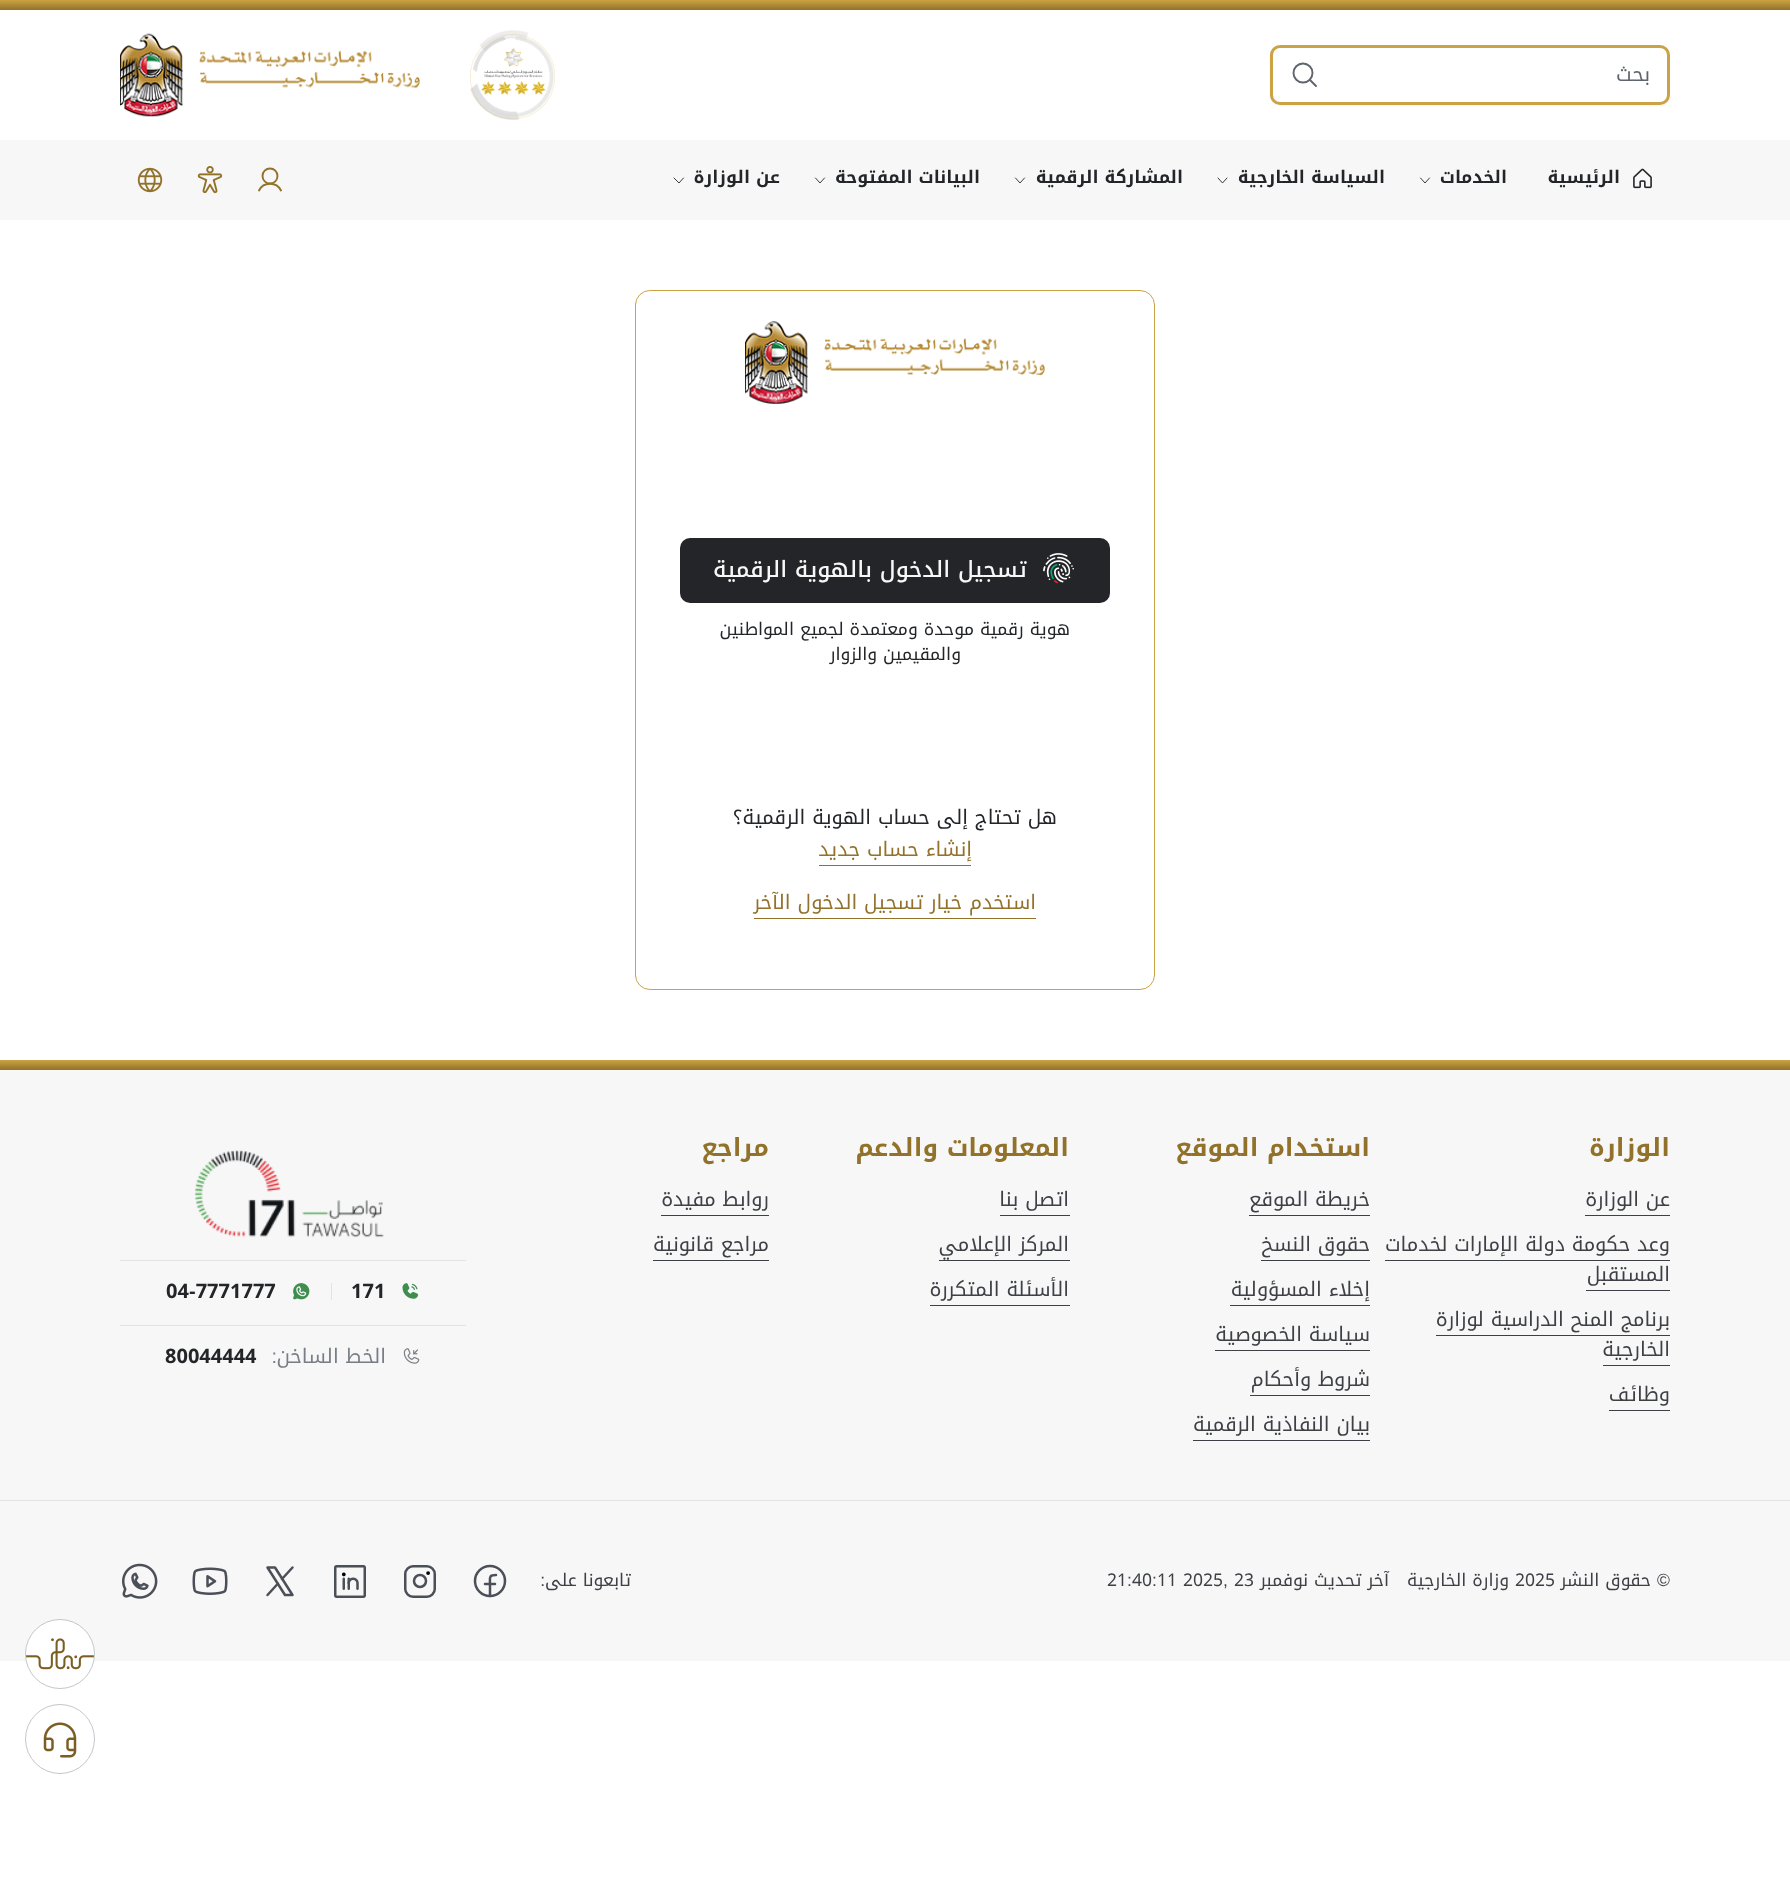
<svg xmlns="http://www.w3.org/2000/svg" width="1790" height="1883">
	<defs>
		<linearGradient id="g1" gradientUnits="userSpaceOnUse" x1="895" y1="0" x2="895" y2="10"><stop offset="0" stop-color="#CBA344" /><stop offset="1" stop-color="#92722A" /></linearGradient>
		<linearGradient id="g2" gradientUnits="userSpaceOnUse" x1="895" y1="1060" x2="895" y2="1070"><stop offset="0" stop-color="#CBA344" /><stop offset="1" stop-color="#92722A" /></linearGradient>
	</defs>
	<rect width="100%" height="100%" fill="#FFFFFF" />
	<rect x="0" y="0" width="1790" height="10" fill="url(#g1)" />
	<rect x="1270" y="46" width="400" height="60" rx="10" fill="#000000" fill-opacity="0.05" filter="blur(1px)" />
	<rect x="1271.5" y="46.5" width="397" height="57" rx="8.5" fill="#FFFFFF" stroke="#CBA344" stroke-width="3" />
	<text x="1650" y="81" font-family="Noto Kufi Arabic" font-size="20" direction="rtl" fill="#5F646D">بحث</text>
	<circle cx="1303" cy="73" r="9.5" fill="none" stroke="#5F646D" stroke-width="1.9" />
	<path d="M1310 80L1316 86" fill="none" stroke="#5F646D" stroke-width="1.9" stroke-linecap="round" stroke-linejoin="round" />
	<image x="470" y="30" width="85" height="90" href="assets/img1.png" />
	<image x="120" y="33" width="300" height="84" href="assets/img2.png" />
	<rect x="0" y="140" width="1790" height="80" fill="#F7F7F7" />
	<image x="1633" y="168" width="19" height="21" href="assets/img3.png" />
	<g font-family="Noto Kufi Arabic" font-size="17.5" font-weight="700" direction="rtl" fill="#232528">
		<text x="1620" y="183">الرئيسية</text>
		<text x="1507" y="183">الخدمات</text>
	</g>
	<path d="M1429.5 178L1425 183L1420.5 178" fill="none" stroke="#232528" stroke-width="0.9" stroke-linecap="round" stroke-linejoin="round" />
	<text x="1385" y="183" font-family="Noto Kufi Arabic" font-size="17.5" font-weight="700" direction="rtl" fill="#232528">السياسة الخارجية</text>
	<path d="M1227 178L1222.5 183L1218 178" fill="none" stroke="#232528" stroke-width="0.9" stroke-linecap="round" stroke-linejoin="round" />
	<text x="1183" y="183" font-family="Noto Kufi Arabic" font-size="17.5" font-weight="700" direction="rtl" fill="#232528">المشاركة الرقمية</text>
	<path d="M1024.5 178L1020 183L1015.5 178" fill="none" stroke="#232528" stroke-width="0.9" stroke-linecap="round" stroke-linejoin="round" />
	<text x="980" y="183" font-family="Noto Kufi Arabic" font-size="17.5" font-weight="700" direction="rtl" fill="#232528">البيانات المفتوحة</text>
	<path d="M824.5 178L820 183L815.5 178" fill="none" stroke="#232528" stroke-width="0.9" stroke-linecap="round" stroke-linejoin="round" />
	<text x="780" y="183" font-family="Noto Kufi Arabic" font-size="17.5" font-weight="700" direction="rtl" fill="#232528">عن الوزارة</text>
	<path d="M683.5 178L679 183L674 178" fill="none" stroke="#232528" stroke-width="0.9" stroke-linecap="round" stroke-linejoin="round" />
	<circle cx="270" cy="176" r="7.5" fill="none" stroke="#92722A" stroke-width="1.9" />
	<path d="M259 190.5C263.5 181.5 276.5 181.5 281 190.5" fill="none" stroke="#92722A" stroke-width="1.9" stroke-linecap="round" stroke-linejoin="round" />
	<image x="197" y="166" width="26" height="28" href="assets/img4.png" />
	<image x="137" y="167" width="26" height="26" href="assets/img5.png" />
	<rect x="635.5" y="290.5" width="519" height="699" rx="14.5" fill="none" stroke="#CBA344" />
	<image x="745" y="321" width="300" height="83" href="assets/img6.png" />
	<rect x="680" y="538" width="430" height="65" rx="10" fill="#232528" />
	<image x="1043" y="553" width="31" height="31" href="assets/img7.png" />
	<text x="1027" y="577" font-family="Noto Kufi Arabic" font-size="22.5" font-weight="500" direction="rtl" fill="#F7F7F7">تسجيل الدخول بالهوية الرقمية</text>
	<g font-family="Noto Kufi Arabic" font-size="17.5" direction="rtl" fill="#232528">
		<text x="1070" y="635">هوية رقمية موحدة ومعتمدة لجميع المواطنين</text>
		<text x="961" y="660">والمقيمين والزوار</text>
	</g>
	<g font-family="Noto Kufi Arabic" font-size="20" direction="rtl" fill="#232528">
		<text x="1057" y="824">هل تحتاج</text>
		<text x="968" y="824">إلى حساب الهوية الرقمية؟</text>
	</g>
	<text x="972" y="856" font-family="Noto Kufi Arabic" font-size="20" direction="rtl" fill="#92722A">إنشاء حساب جديد</text>
	<rect x="819" y="865" width="152" height="1" fill="#92722A" />
	<text x="1036" y="909" font-family="Noto Kufi Arabic" font-size="20" direction="rtl" fill="#92722A">استخدم خيار تسجيل الدخول الآخر</text>
	<rect x="754" y="918" width="282" height="1" fill="#92722A" />
	<rect x="0" y="1070" width="1790" height="591" fill="#F7F7F7" />
	<rect x="0" y="1060" width="1790" height="10" fill="url(#g2)" />
	<text x="1670" y="1156" font-family="Noto Kufi Arabic" font-size="25" font-weight="700" direction="rtl" fill="#92722A">الوزارة</text>
	<text x="1670" y="1206" font-family="Noto Kufi Arabic" font-size="20" direction="rtl" fill="#3E4046">عن الوزارة</text>
	<rect x="1585" y="1215" width="85" height="1" fill="#3E4046" />
	<text x="1670" y="1251" font-family="Noto Kufi Arabic" font-size="20" direction="rtl" fill="#3E4046">وعد حكومة دولة الإمارات لخدمات</text>
	<rect x="1385" y="1260" width="285" height="1" fill="#3E4046" />
	<text x="1670" y="1281" font-family="Noto Kufi Arabic" font-size="20" direction="rtl" fill="#3E4046">المستقبل</text>
	<rect x="1586" y="1290" width="84" height="1" fill="#3E4046" />
	<text x="1670" y="1326" font-family="Noto Kufi Arabic" font-size="20" direction="rtl" fill="#3E4046">برنامج المنح الدراسية لوزارة</text>
	<rect x="1436" y="1335" width="234" height="1" fill="#3E4046" />
	<text x="1670" y="1356" font-family="Noto Kufi Arabic" font-size="20" direction="rtl" fill="#3E4046">الخارجية</text>
	<rect x="1603" y="1365" width="67" height="1" fill="#3E4046" />
	<text x="1670" y="1401" font-family="Noto Kufi Arabic" font-size="20" direction="rtl" fill="#3E4046">وظائف</text>
	<rect x="1609" y="1410" width="61" height="1" fill="#3E4046" />
	<text x="1370" y="1156" font-family="Noto Kufi Arabic" font-size="25" font-weight="700" direction="rtl" fill="#92722A">استخدام الموقع</text>
	<text x="1370" y="1206" font-family="Noto Kufi Arabic" font-size="20" direction="rtl" fill="#3E4046">خريطة الموقع</text>
	<rect x="1249" y="1215" width="121" height="1" fill="#3E4046" />
	<text x="1370" y="1251" font-family="Noto Kufi Arabic" font-size="20" direction="rtl" fill="#3E4046">حقوق النسخ</text>
	<rect x="1261" y="1260" width="109" height="1" fill="#3E4046" />
	<text x="1370" y="1296" font-family="Noto Kufi Arabic" font-size="20" direction="rtl" fill="#3E4046">إخلاء المسؤولية</text>
	<rect x="1230" y="1305" width="140" height="1" fill="#3E4046" />
	<text x="1370" y="1341" font-family="Noto Kufi Arabic" font-size="20" direction="rtl" fill="#3E4046">سياسة الخصوصية</text>
	<rect x="1215" y="1350" width="155" height="1" fill="#3E4046" />
	<text x="1370" y="1386" font-family="Noto Kufi Arabic" font-size="20" direction="rtl" fill="#3E4046">شروط وأحكام</text>
	<rect x="1250" y="1395" width="120" height="1" fill="#3E4046" />
	<text x="1370" y="1431" font-family="Noto Kufi Arabic" font-size="20" direction="rtl" fill="#3E4046">بيان النفاذية الرقمية</text>
	<rect x="1193" y="1440" width="177" height="1" fill="#3E4046" />
	<text x="1069" y="1156" font-family="Noto Kufi Arabic" font-size="25" font-weight="700" direction="rtl" fill="#92722A">المعلومات والدعم</text>
	<text x="1069" y="1206" font-family="Noto Kufi Arabic" font-size="20" direction="rtl" fill="#3E4046">اتصل بنا</text>
	<rect x="1000" y="1215" width="70" height="1" fill="#3E4046" />
	<text x="1069" y="1251" font-family="Noto Kufi Arabic" font-size="20" direction="rtl" fill="#3E4046">المركز الإعلامي</text>
	<rect x="939" y="1260" width="131" height="1" fill="#3E4046" />
	<text x="1069" y="1296" font-family="Noto Kufi Arabic" font-size="20" direction="rtl" fill="#3E4046">الأسئلة المتكررة</text>
	<rect x="930" y="1305" width="140" height="1" fill="#3E4046" />
	<text x="769" y="1156" font-family="Noto Kufi Arabic" font-size="25" font-weight="700" direction="rtl" fill="#92722A">مراجع</text>
	<text x="769" y="1206" font-family="Noto Kufi Arabic" font-size="20" direction="rtl" fill="#3E4046">روابط مفيدة</text>
	<rect x="661" y="1215" width="108" height="1" fill="#3E4046" />
	<text x="769" y="1251" font-family="Noto Kufi Arabic" font-size="20" direction="rtl" fill="#3E4046">مراجع قانونية</text>
	<rect x="653" y="1260" width="116" height="1" fill="#3E4046" />
	<image x="194" y="1150" width="190" height="88" href="assets/img8.png" />
	<rect x="120" y="1260" width="346" height="1" fill="#E1E3E5" />
	<image x="402" y="1283" width="17" height="16" href="assets/img9.png" />
	<text x="351" y="1298" font-family="Noto Kufi Arabic" font-size="20" font-weight="700" fill="#232528">171</text>
	<rect x="331" y="1283" width="1" height="17" fill="#E1E3E5" />
	<image x="293" y="1283" width="17" height="17" href="assets/img10.png" />
	<text x="166" y="1298" font-family="Noto Kufi Arabic" font-size="20" font-weight="700" fill="#232528">04 7771777</text>
	<text x="189" y="1298" font-family="Liberation Sans" font-size="20" font-weight="700" fill="#232528">-</text>
	<rect x="120" y="1325" width="346" height="1" fill="#E1E3E5" />
	<image x="403" y="1348" width="17" height="16" href="assets/img11.png" />
	<text x="386" y="1363" font-family="Noto Kufi Arabic" font-size="20" direction="rtl" fill="#797E86">الخط الساخن</text>
	<text x="277" y="1363" font-family="Liberation Sans" font-size="20" direction="rtl" fill="#797E86">:</text>
	<text x="165" y="1363" font-family="Noto Kufi Arabic" font-size="20" font-weight="700" fill="#232528">80044444</text>
	<rect x="0" y="1500" width="1790" height="1" fill="#E1E3E5" />
	<text x="1670" y="1586" font-family="Liberation Sans" font-size="17.5" direction="rtl" fill="#3E4046">©</text>
	<text x="1651" y="1586" font-family="Noto Kufi Arabic" font-size="17.5" direction="rtl" fill="#3E4046">حقوق النشر</text>
	<text x="1515" y="1586" font-family="Noto Kufi Arabic" font-size="17.5" fill="#3E4046">2025</text>
	<g font-family="Noto Kufi Arabic" font-size="17.5" direction="rtl" fill="#3E4046">
		<text x="1509" y="1586">وزارة الخارجية</text>
		<text x="1389" y="1586">آخر تحديث</text>
		<text x="1308" y="1586">نوفمبر</text>
	</g>
	<g font-family="Noto Kufi Arabic" font-size="17.5" fill="#3E4046">
		<text x="1234" y="1586">23</text>
		<text x="1157" y="1586">11 2025</text>
	</g>
	<text x="1152" y="1586" font-family="Liberation Sans" font-size="17.5" fill="#3E4046">:</text>
	<text x="1132" y="1586" font-family="Noto Kufi Arabic" font-size="17.5" fill="#3E4046">40</text>
	<text x="1127" y="1586" font-family="Liberation Sans" font-size="17.5" fill="#3E4046">:</text>
	<text x="1107" y="1586" font-family="Noto Kufi Arabic" font-size="17.5" fill="#3E4046">21</text>
	<text x="1223" y="1586" font-family="Liberation Sans" font-size="17.5" fill="#3E4046">,</text>
	<text x="631" y="1586" font-family="Noto Kufi Arabic" font-size="17.5" direction="rtl" fill="#3E4046">تابعونا على</text>
	<text x="545" y="1586" font-family="Liberation Sans" font-size="17.5" direction="rtl" fill="#3E4046">:</text>
	<circle cx="490" cy="1581" r="15" fill="none" stroke="#4B4F58" stroke-width="2.5" />
	<path d="M496 1575C488.5 1575 490 1577.5 490 1584.5V1596M485 1584H495" fill="none" stroke="#4B4F58" stroke-width="2.5" stroke-linecap="round" stroke-linejoin="round" />
	<circle cx="420" cy="1581" r="6" fill="none" stroke="#4B4F58" stroke-width="2.5" />
	<rect x="405.25" y="1566.25" width="29.5" height="30.5" rx="7.75" fill="none" stroke="#4B4F58" stroke-width="2.5" />
	<circle cx="428.1" cy="1573.1" r="1.9" fill="#000000" />
	<image x="334" y="1565" width="32" height="33" href="assets/img12.png" />
	<path d="M267.5 1567.5H275L292.5 1595H285ZM278 1583.5L267.5 1595M292.5 1567.5L282 1579" fill="none" stroke="#4B4F58" stroke-width="2.5" stroke-linecap="round" stroke-linejoin="round" />
	<image x="192" y="1567" width="36" height="28" href="assets/img13.png" />
	<image x="122" y="1563" width="36" height="36" href="assets/img14.png" />
	<circle cx="60" cy="1654" r="34.5" fill="#FFFFFF" stroke="#C3C6CB" />
	<image x="26" y="1638" width="68" height="32" href="assets/img15.png" />
	<circle cx="60" cy="1739" r="34.5" fill="none" stroke="#C3C6CB" />
	<image x="43" y="1722" width="34" height="36" href="assets/img16.png" />
</svg>
